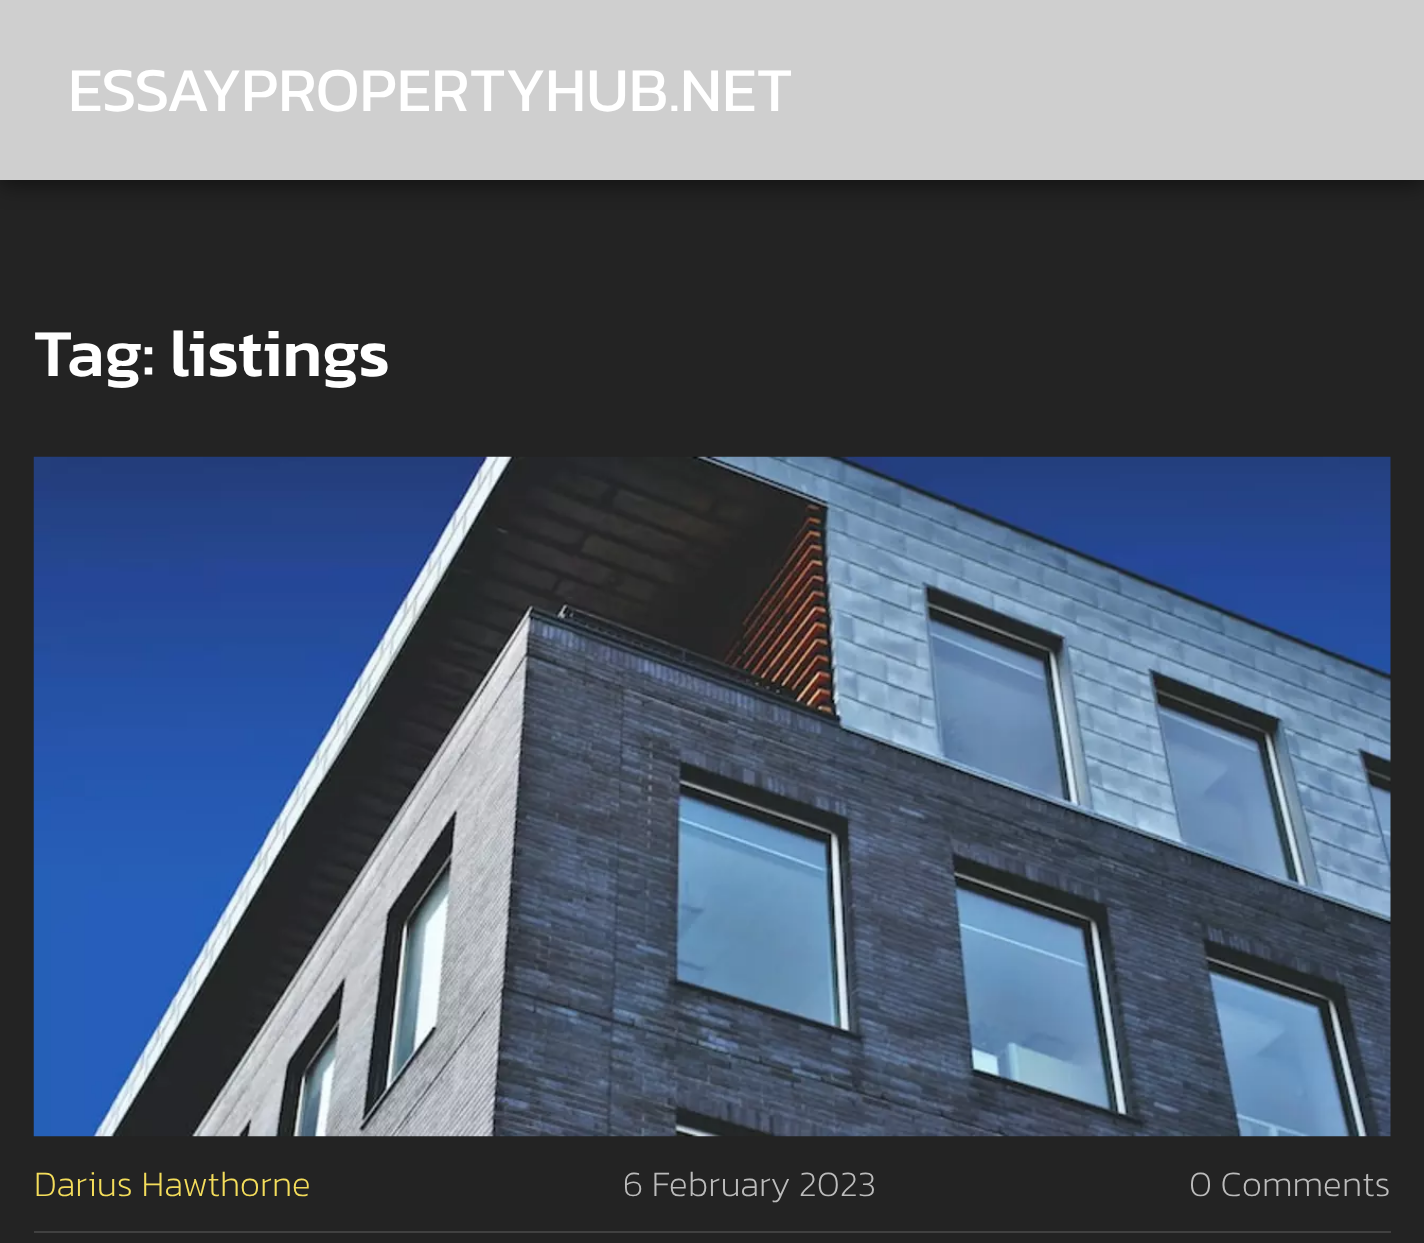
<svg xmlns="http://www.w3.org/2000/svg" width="1424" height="1243">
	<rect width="100%" height="100%" fill="#232323" />
	<rect x="0" y="5" width="1424" height="180" fill="#000000" fill-opacity="0.5" filter="blur(11px)" />
	<rect x="0" y="0" width="1424" height="180" fill="#CFCFCF" />
	<text x="68" y="111" font-family="Kanit" font-size="63" fill="#FFFFFF">ESSAYPROPERTYHUB.NET</text>
	<text x="34" y="376" font-family="Kanit" font-size="67.5" font-weight="500" fill="#FFFFFF">Tag: listings</text>
	<image x="33" y="456" width="1358" height="681" href="assets/img1.png" />
	<rect x="34" y="1231" width="1357" height="2" fill="#414141" />
	<text x="34" y="1196" font-family="Kanit" font-size="36" font-weight="200" fill="#F4DD5B">Darius Hawthorne</text>
	<g font-family="Kanit" font-size="36" font-weight="200" fill="#BBBBBB">
		<text x="623" y="1196">6 February 2023</text>
		<text x="1189" y="1196">0 Comments</text>
	</g>
</svg>
